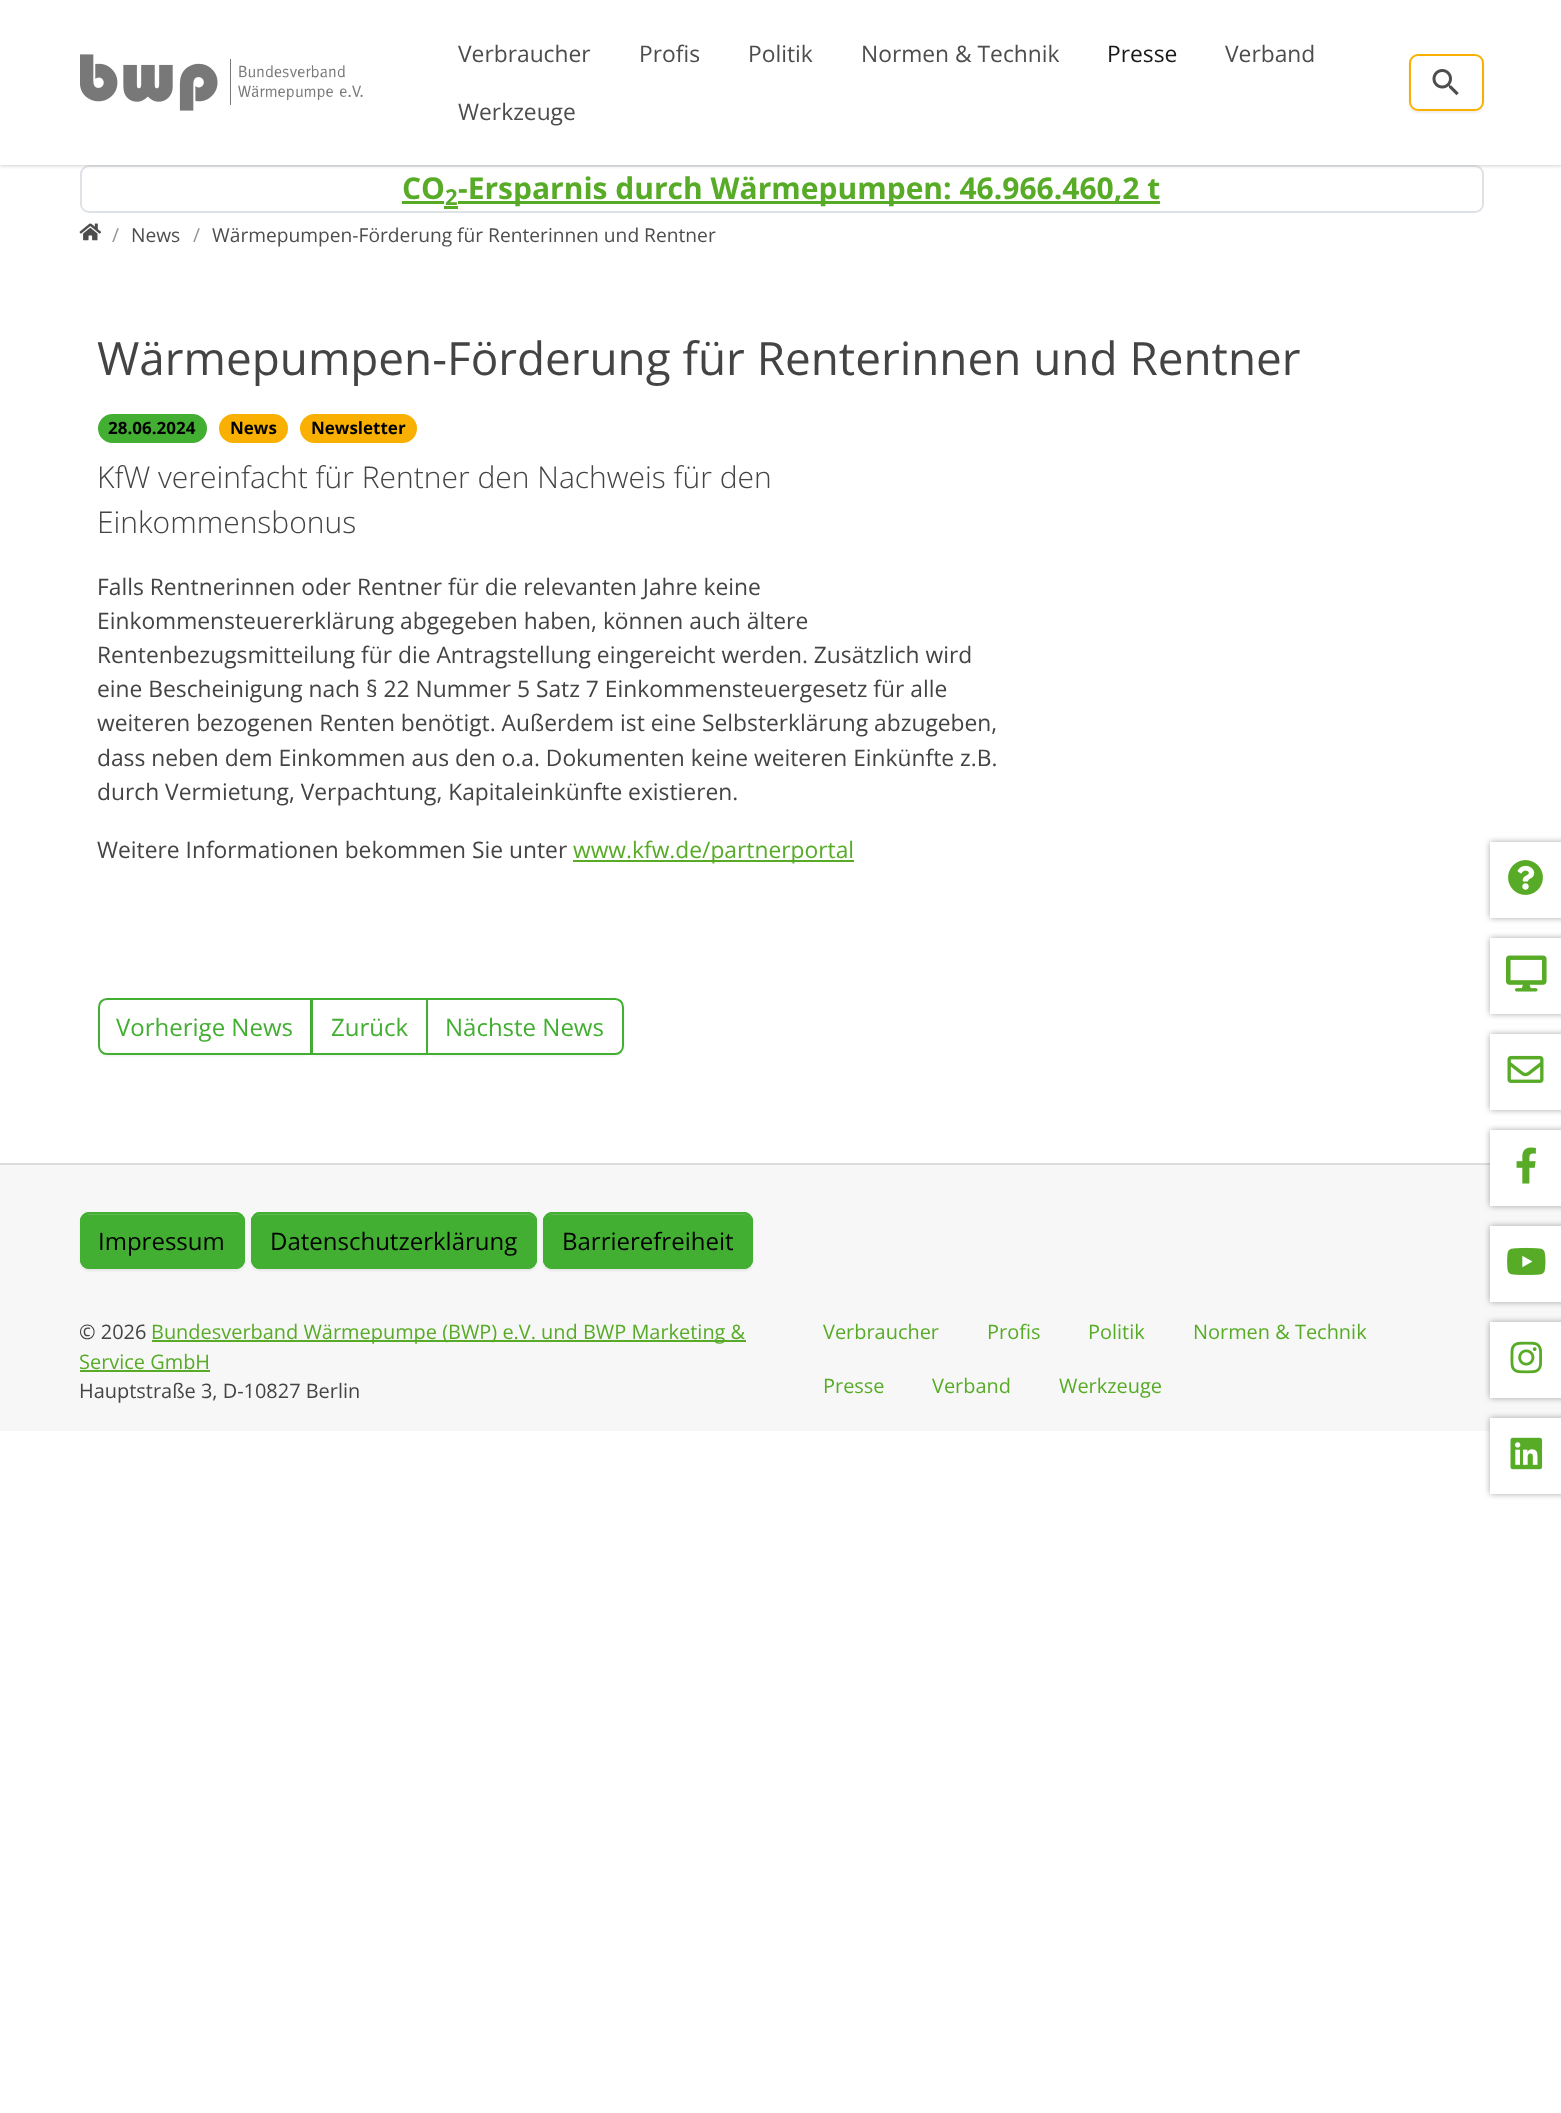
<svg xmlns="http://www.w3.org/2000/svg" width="1561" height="2113">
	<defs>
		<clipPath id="clip1"><rect x="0" y="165" width="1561" height="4" /></clipPath>
		<clipPath id="clip2"><path d="M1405 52H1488V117H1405ZM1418 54H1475C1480 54 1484 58 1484 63V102C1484 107 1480 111 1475 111H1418C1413 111 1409 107 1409 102V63C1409 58 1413 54 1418 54Z" clip-rule="evenodd" /></clipPath>
		<clipPath id="clip3"><path d="M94 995H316V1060H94ZM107 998H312V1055H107C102 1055 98 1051 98 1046V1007C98 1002 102 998 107 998Z" clip-rule="evenodd" /></clipPath>
		<clipPath id="clip4"><path d="M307 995H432V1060H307ZM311 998H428V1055H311Z" clip-rule="evenodd" /></clipPath>
		<clipPath id="clip5"><path d="M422 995H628V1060H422ZM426 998H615C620 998 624 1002 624 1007V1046C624 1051 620 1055 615 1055H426Z" clip-rule="evenodd" /></clipPath>
		<clipPath id="clip6"><path d="M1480 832H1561V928H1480ZM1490 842H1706V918H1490Z" clip-rule="evenodd" /></clipPath>
		<clipPath id="clip7"><path d="M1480 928H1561V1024H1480ZM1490 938H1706V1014H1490Z" clip-rule="evenodd" /></clipPath>
		<clipPath id="clip8"><path d="M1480 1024H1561V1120H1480ZM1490 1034H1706V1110H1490Z" clip-rule="evenodd" /></clipPath>
	</defs>
	<rect width="100%" height="100%" fill="#FFFFFF" />
	<rect x="81" y="166" width="1402" height="46" rx="8" fill="none" stroke="#DEE2E6" stroke-width="2" />
	<g clip-path="url(#clip1)">
		<rect x="0" y="0" width="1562" height="165" fill="#BBBBBB" filter="blur(2px)" />
	</g>
	<image x="80" y="54" width="283" height="57" href="assets/img1.png" />
	<g font-family="Open Sans" font-size="22.8" fill="#4D4D4D">
		<text x="458" y="62">Verbraucher</text>
		<text x="639" y="62">Profis</text>
		<text x="748" y="62">Politik</text>
		<text x="861" y="62">Normen &amp; Technik</text>
	</g>
	<text x="1107" y="62" font-family="Open Sans" font-size="22.8" fill="#1A1A1A">Presse</text>
	<g font-family="Open Sans" font-size="22.8" fill="#4D4D4D">
		<text x="1225" y="62">Verband</text>
		<text x="458" y="120">Werkzeuge</text>
	</g>
	<g clip-path="url(#clip2)">
		<rect x="1409" y="56" width="75" height="57" rx="9" fill="#000000" fill-opacity="0.07" filter="blur(1px)" />
	</g>
	<rect x="1410" y="55" width="73" height="55" rx="8" fill="none" stroke="#F9B000" stroke-width="2" />
	<image x="1432" y="69" width="27" height="27" href="assets/img2.png" />
	<text x="402" y="199" font-family="Open Sans" font-size="30" font-weight="700" fill="#57AB27">CO</text>
	<text x="445" y="205" font-family="Open Sans" font-size="22" font-weight="700" fill="#57AB27">2</text>
	<rect x="402" y="201" width="42" height="3" fill="#57AB27" />
	<rect x="458" y="201" width="702" height="3" fill="#57AB27" />
	<rect x="444" y="206" width="14" height="3" fill="#57AB27" />
	<text x="458" y="199" font-family="Open Sans" font-size="30" font-weight="700" fill="#57AB27">-Ersparnis durch Wärmepumpen: 46.966.460,2 t</text>
	<image x="79" y="223" width="22" height="18" href="assets/img3.png" />
	<text x="112" y="242" font-family="Open Sans" font-size="19.2" fill="#949494">/</text>
	<text x="131" y="242" font-family="Open Sans" font-size="19.2" fill="#4D4D4D">News</text>
	<text x="193" y="242" font-family="Open Sans" font-size="19.2" fill="#949494">/</text>
	<text x="212" y="242" font-family="Open Sans" font-size="19.2" fill="#4D4D4D">Wärmepumpen-Förderung für Renterinnen und Rentner</text>
	<text x="97" y="375" font-family="Open Sans" font-size="45.85" fill="#444444">Wärmepumpen-Förderung für Renterinnen und Rentner</text>
	<rect x="98" y="414" width="109" height="29" rx="14.5" fill="#42AE32" />
	<text x="108" y="434" font-family="Open Sans" font-size="17" font-weight="700" fill="#000000">28.06.2024</text>
	<rect x="219" y="414" width="69" height="29" rx="14.5" fill="#F9B000" />
	<text x="230" y="434" font-family="Open Sans" font-size="17" font-weight="700" fill="#000000">News</text>
	<rect x="300" y="414" width="117" height="29" rx="14.5" fill="#F9B000" />
	<text x="311" y="434" font-family="Open Sans" font-size="17" font-weight="700" fill="#000000">Newsletter</text>
	<g font-family="Open Sans" font-size="30" font-weight="300" fill="#444444">
		<text x="97" y="488">KfW vereinfacht für Rentner den Nachweis für den</text>
		<text x="97" y="533">Einkommensbonus</text>
	</g>
	<g font-family="Open Sans" font-size="22.8" fill="#444444">
		<text x="97" y="595">Falls Rentnerinnen oder Rentner für die relevanten Jahre keine</text>
		<text x="97" y="629">Einkommensteuererklärung abgegeben haben, können auch ältere</text>
		<text x="97" y="663">Rentenbezugsmitteilung für die Antragstellung eingereicht werden. Zusätzlich wird</text>
		<text x="97" y="697">eine Bescheinigung nach § 22 Nummer 5 Satz 7 Einkommensteuergesetz für alle</text>
		<text x="97" y="731">weiteren bezogenen Renten benötigt. Außerdem ist eine Selbsterklärung abzugeben,</text>
		<text x="97" y="766">dass neben dem Einkommen aus den o.a. Dokumenten keine weiteren Einkünfte z.B.</text>
		<text x="97" y="800">durch Vermietung, Verpachtung, Kapitaleinkünfte existieren.</text>
		<text x="97" y="858">Weitere Informationen bekommen Sie unter</text>
	</g>
	<rect x="573" y="860" width="281" height="2" fill="#57AB27" />
	<text x="573" y="858" font-family="Open Sans" font-size="22.8" fill="#57AB27">www.kfw.de/partnerportal</text>
	<g clip-path="url(#clip3)">
		<rect x="98" y="999" width="214" height="57" rx="9" fill="#000000" fill-opacity="0.07" filter="blur(1px)" />
	</g>
	<path d="M107 999H311V1054H107C102.5 1054 99 1050.5 99 1046V1007C99 1002.5 102.5 999 107 999Z" fill="none" stroke="#42AE32" stroke-width="2" />
	<text x="116" y="1036" font-family="Open Sans" font-size="24" fill="#42AE32">Vorherige News</text>
	<g clip-path="url(#clip4)">
		<rect x="311" y="999" width="117" height="57" fill="#000000" fill-opacity="0.07" filter="blur(1px)" />
	</g>
	<rect x="312" y="999" width="115" height="55" fill="none" stroke="#42AE32" stroke-width="2" />
	<text x="331" y="1036" font-family="Open Sans" font-size="24" fill="#42AE32">Zurück</text>
	<g clip-path="url(#clip5)">
		<rect x="426" y="999" width="198" height="57" rx="9" fill="#000000" fill-opacity="0.07" filter="blur(1px)" />
	</g>
	<path d="M427 999H615C619.5 999 623 1002.5 623 1007V1046C623 1050.5 619.5 1054 615 1054H427Z" fill="none" stroke="#42AE32" stroke-width="2" />
	<text x="445" y="1036" font-family="Open Sans" font-size="24" fill="#42AE32">Nächste News</text>
	<rect x="0" y="1165" width="1561" height="266" fill="#F7F7F7" />
	<rect x="0" y="1163" width="1490" height="2" fill="#DDDDDD" />
	<rect x="80" y="1214" width="165" height="57" rx="9" fill="#000000" fill-opacity="0.07" filter="blur(1px)" />
	<rect x="80" y="1212" width="165" height="57" rx="9" fill="#42AE32" />
	<path d="M88 1215H236C240 1215 243 1218 243 1222C243 1218 239 1214 235 1214H89C85 1214 81 1218 81 1222C81 1218 84 1215 88 1215Z" fill="#5EBA51" />
	<rect x="81" y="1213" width="163" height="55" rx="8" fill="none" stroke="#42AE32" stroke-width="2" />
	<text x="98" y="1250" font-family="Open Sans" font-size="24" fill="#000000">Impressum</text>
	<rect x="251" y="1214" width="286" height="57" rx="9" fill="#000000" fill-opacity="0.07" filter="blur(1px)" />
	<rect x="251" y="1212" width="286" height="57" rx="9" fill="#42AE32" />
	<path d="M260 1215H528C532 1215 536 1218 536 1222C536 1218 532 1214 528 1214H260C256 1214 252 1218 252 1222C252 1218 255 1215 260 1215Z" fill="#5EBA51" />
	<rect x="252" y="1213" width="284" height="55" rx="8" fill="none" stroke="#42AE32" stroke-width="2" />
	<text x="270" y="1250" font-family="Open Sans" font-size="24" fill="#000000">Datenschutzerklärung</text>
	<rect x="543" y="1214" width="210" height="57" rx="9" fill="#000000" fill-opacity="0.07" filter="blur(1px)" />
	<rect x="543" y="1212" width="210" height="57" rx="9" fill="#42AE32" />
	<path d="M552 1215H744C748 1215 752 1218 752 1222C752 1218 748 1214 744 1214H553C551 1214 549 1215 547 1216C549 1216 550 1215 552 1215Z" fill="#5EBA51" />
	<rect x="544" y="1213" width="208" height="55" rx="8" fill="none" stroke="#42AE32" stroke-width="2" />
	<text x="562" y="1250" font-family="Open Sans" font-size="24" fill="#000000">Barrierefreiheit</text>
	<g clip-path="url(#clip6)">
		<rect x="1490" y="842" width="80" height="76" fill="#000000" fill-opacity="0.34" filter="blur(3px)" />
	</g>
	<image x="1508" y="860" width="35" height="35" href="assets/img4.png" />
	<g clip-path="url(#clip7)">
		<rect x="1490" y="938" width="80" height="76" fill="#000000" fill-opacity="0.34" filter="blur(3px)" />
	</g>
	<image x="1506" y="955" width="41" height="37" href="assets/img5.png" />
	<g clip-path="url(#clip8)">
		<rect x="1490" y="1034" width="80" height="76" fill="#000000" fill-opacity="0.34" filter="blur(3px)" />
	</g>
	<image x="1507" y="1055" width="37" height="28" href="assets/img6.png" />
	<rect x="1490" y="1130" width="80" height="76" fill="#000000" fill-opacity="0.34" filter="blur(3px)" />
	<rect x="1490" y="1130" width="71" height="76" fill="#FFFFFF" />
	<image x="1516" y="1147" width="20" height="37" href="assets/img7.png" />
	<rect x="1490" y="1226" width="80" height="76" fill="#000000" fill-opacity="0.34" filter="blur(3px)" />
	<rect x="1490" y="1226" width="71" height="76" fill="#FFFFFF" />
	<image x="1507" y="1247" width="39" height="28" href="assets/img8.png" />
	<rect x="1490" y="1322" width="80" height="76" fill="#000000" fill-opacity="0.34" filter="blur(3px)" />
	<rect x="1490" y="1322" width="71" height="76" fill="#FFFFFF" />
	<image x="1510" y="1341" width="33" height="33" href="assets/img9.png" />
	<rect x="1490" y="1418" width="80" height="76" fill="#000000" fill-opacity="0.34" filter="blur(3px)" />
	<rect x="1490" y="1418" width="71" height="76" fill="#FFFFFF" />
	<image x="1510" y="1437" width="33" height="33" href="assets/img10.png" />
	<text x="79" y="1339" font-family="Open Sans" font-size="19.95" fill="#444444">© 2026</text>
	<rect x="152" y="1340" width="594" height="2" fill="#57AB27" />
	<g font-family="Open Sans" font-size="19.95" fill="#57AB27">
		<text x="151" y="1339">Bundesverband Wärmepumpe (BWP) e.V. und BWP Marketing &amp;</text>
		<text x="79" y="1369">Service GmbH</text>
	</g>
	<rect x="80" y="1370" width="130" height="2" fill="#57AB27" />
	<text x="79" y="1398" font-family="Open Sans" font-size="19.95" fill="#444444">Hauptstraße 3, D-10827 Berlin</text>
	<g font-family="Open Sans" font-size="19.95" fill="#57AB27">
		<text x="823" y="1339">Verbraucher</text>
		<text x="987" y="1339">Profis</text>
		<text x="1088" y="1339">Politik</text>
		<text x="1193" y="1339">Normen &amp; Technik</text>
		<text x="823" y="1393">Presse</text>
		<text x="932" y="1393">Verband</text>
		<text x="1059" y="1393">Werkzeuge</text>
	</g>
</svg>
